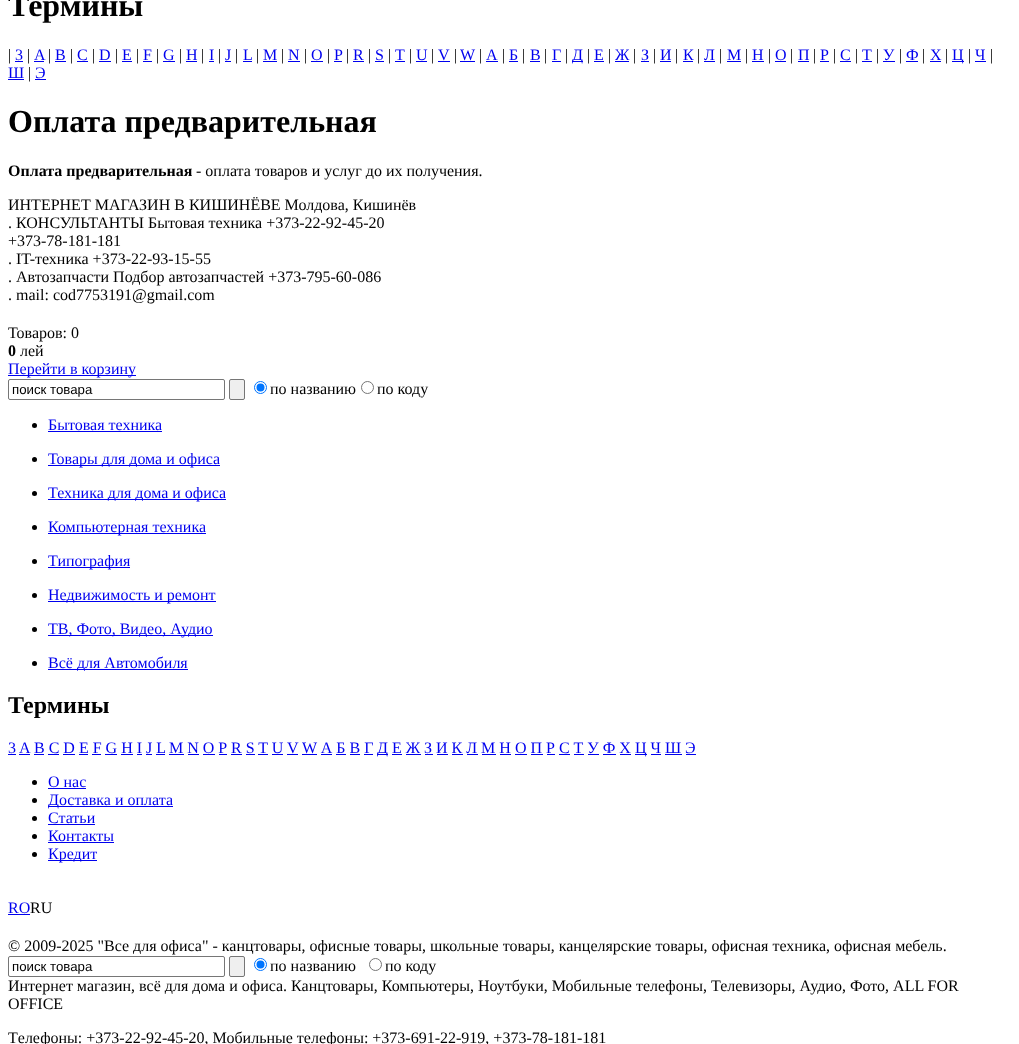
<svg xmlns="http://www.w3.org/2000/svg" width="1019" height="1044">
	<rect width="100%" height="100%" fill="#FFFFFF" />
	<text x="8" y="16" font-family="Liberation Serif" font-size="32" font-weight="700" fill="#000000">Термины</text>
	<text x="8" y="60" font-family="Liberation Serif" font-size="16" fill="#000000">|</text>
	<text x="15" y="60" font-family="Liberation Serif" font-size="16" fill="#0000EE">3</text>
	<rect x="15" y="61" width="8" height="1" fill="#0000EE" />
	<text x="27" y="60" font-family="Liberation Serif" font-size="16" fill="#000000">|</text>
	<text x="34" y="60" font-family="Liberation Serif" font-size="16" fill="#0000EE">A</text>
	<rect x="34" y="61" width="10" height="1" fill="#0000EE" />
	<text x="48" y="60" font-family="Liberation Serif" font-size="16" fill="#000000">|</text>
	<text x="55" y="60" font-family="Liberation Serif" font-size="16" fill="#0000EE">B</text>
	<rect x="55" y="61" width="11" height="1" fill="#0000EE" />
	<text x="70" y="60" font-family="Liberation Serif" font-size="16" fill="#000000">|</text>
	<text x="77" y="60" font-family="Liberation Serif" font-size="16" fill="#0000EE">C</text>
	<rect x="77" y="61" width="11" height="1" fill="#0000EE" />
	<text x="92" y="60" font-family="Liberation Serif" font-size="16" fill="#000000">|</text>
	<text x="99" y="60" font-family="Liberation Serif" font-size="16" fill="#0000EE">D</text>
	<rect x="99" y="61" width="12" height="1" fill="#0000EE" />
	<text x="115" y="60" font-family="Liberation Serif" font-size="16" fill="#000000">|</text>
	<text x="122" y="60" font-family="Liberation Serif" font-size="16" fill="#0000EE">E</text>
	<rect x="122" y="61" width="10" height="1" fill="#0000EE" />
	<text x="136" y="60" font-family="Liberation Serif" font-size="16" fill="#000000">|</text>
	<text x="143" y="60" font-family="Liberation Serif" font-size="16" fill="#0000EE">F</text>
	<rect x="143" y="61" width="9" height="1" fill="#0000EE" />
	<text x="156" y="60" font-family="Liberation Serif" font-size="16" fill="#000000">|</text>
	<text x="163" y="60" font-family="Liberation Serif" font-size="16" fill="#0000EE">G</text>
	<rect x="163" y="61" width="12" height="1" fill="#0000EE" />
	<text x="179" y="60" font-family="Liberation Serif" font-size="16" fill="#000000">|</text>
	<text x="186" y="60" font-family="Liberation Serif" font-size="16" fill="#0000EE">H</text>
	<rect x="186" y="61" width="11" height="1" fill="#0000EE" />
	<text x="201" y="60" font-family="Liberation Serif" font-size="16" fill="#000000">|</text>
	<text x="209" y="60" font-family="Liberation Serif" font-size="16" fill="#0000EE">I</text>
	<rect x="209" y="61" width="5" height="1" fill="#0000EE" />
	<text x="218" y="60" font-family="Liberation Serif" font-size="16" fill="#000000">|</text>
	<text x="225" y="60" font-family="Liberation Serif" font-size="16" fill="#0000EE">J</text>
	<rect x="225" y="61" width="6" height="1" fill="#0000EE" />
	<text x="235" y="60" font-family="Liberation Serif" font-size="16" fill="#000000">|</text>
	<text x="243" y="60" font-family="Liberation Serif" font-size="16" fill="#0000EE">L</text>
	<rect x="243" y="61" width="9" height="1" fill="#0000EE" />
	<text x="256" y="60" font-family="Liberation Serif" font-size="16" fill="#000000">|</text>
	<text x="263" y="60" font-family="Liberation Serif" font-size="16" fill="#0000EE">M</text>
	<rect x="263" y="61" width="14" height="1" fill="#0000EE" />
	<text x="281" y="60" font-family="Liberation Serif" font-size="16" fill="#000000">|</text>
	<text x="288" y="60" font-family="Liberation Serif" font-size="16" fill="#0000EE">N</text>
	<rect x="288" y="61" width="12" height="1" fill="#0000EE" />
	<text x="304" y="60" font-family="Liberation Serif" font-size="16" fill="#000000">|</text>
	<text x="311" y="60" font-family="Liberation Serif" font-size="16" fill="#0000EE">O</text>
	<rect x="311" y="61" width="12" height="1" fill="#0000EE" />
	<text x="327" y="60" font-family="Liberation Serif" font-size="16" fill="#000000">|</text>
	<text x="334" y="60" font-family="Liberation Serif" font-size="16" fill="#0000EE">P</text>
	<rect x="334" y="61" width="8" height="1" fill="#0000EE" />
	<text x="346" y="60" font-family="Liberation Serif" font-size="16" fill="#000000">|</text>
	<text x="353" y="60" font-family="Liberation Serif" font-size="16" fill="#0000EE">R</text>
	<rect x="353" y="61" width="11" height="1" fill="#0000EE" />
	<text x="368" y="60" font-family="Liberation Serif" font-size="16" fill="#000000">|</text>
	<text x="375" y="60" font-family="Liberation Serif" font-size="16" fill="#0000EE">S</text>
	<rect x="375" y="61" width="9" height="1" fill="#0000EE" />
	<text x="388" y="60" font-family="Liberation Serif" font-size="16" fill="#000000">|</text>
	<text x="395" y="60" font-family="Liberation Serif" font-size="16" fill="#0000EE">T</text>
	<rect x="395" y="61" width="10" height="1" fill="#0000EE" />
	<text x="409" y="60" font-family="Liberation Serif" font-size="16" fill="#000000">|</text>
	<text x="416" y="60" font-family="Liberation Serif" font-size="16" fill="#0000EE">U</text>
	<rect x="416" y="61" width="11" height="1" fill="#0000EE" />
	<text x="431" y="60" font-family="Liberation Serif" font-size="16" fill="#000000">|</text>
	<text x="438" y="60" font-family="Liberation Serif" font-size="16" fill="#0000EE">V</text>
	<rect x="438" y="61" width="12" height="1" fill="#0000EE" />
	<text x="454" y="60" font-family="Liberation Serif" font-size="16" fill="#000000">|</text>
	<text x="460" y="60" font-family="Liberation Serif" font-size="16" fill="#0000EE">W</text>
	<rect x="460" y="61" width="15" height="1" fill="#0000EE" />
	<text x="479" y="60" font-family="Liberation Serif" font-size="16" fill="#000000">|</text>
	<text x="486" y="60" font-family="Liberation Serif" font-size="16" fill="#0000EE">А</text>
	<rect x="486" y="61" width="12" height="1" fill="#0000EE" />
	<text x="502" y="60" font-family="Liberation Serif" font-size="16" fill="#000000">|</text>
	<text x="509" y="60" font-family="Liberation Serif" font-size="16" fill="#0000EE">Б</text>
	<rect x="509" y="61" width="9" height="1" fill="#0000EE" />
	<text x="522" y="60" font-family="Liberation Serif" font-size="16" fill="#000000">|</text>
	<text x="530" y="60" font-family="Liberation Serif" font-size="16" fill="#0000EE">В</text>
	<rect x="530" y="61" width="10" height="1" fill="#0000EE" />
	<text x="544" y="60" font-family="Liberation Serif" font-size="16" fill="#000000">|</text>
	<text x="552" y="60" font-family="Liberation Serif" font-size="16" fill="#0000EE">Г</text>
	<rect x="552" y="61" width="9" height="1" fill="#0000EE" />
	<text x="565" y="60" font-family="Liberation Serif" font-size="16" fill="#000000">|</text>
	<rect x="572" y="61" width="11" height="1" fill="#0000EE" />
	<text x="572" y="60" font-family="Liberation Serif" font-size="16" fill="#0000EE">Д</text>
	<text x="587" y="60" font-family="Liberation Serif" font-size="16" fill="#000000">|</text>
	<text x="594" y="60" font-family="Liberation Serif" font-size="16" fill="#0000EE">Е</text>
	<rect x="594" y="61" width="10" height="1" fill="#0000EE" />
	<text x="608" y="60" font-family="Liberation Serif" font-size="16" fill="#000000">|</text>
	<text x="615" y="60" font-family="Liberation Serif" font-size="16" fill="#0000EE">Ж</text>
	<rect x="615" y="61" width="14" height="1" fill="#0000EE" />
	<text x="633" y="60" font-family="Liberation Serif" font-size="16" fill="#000000">|</text>
	<text x="641" y="60" font-family="Liberation Serif" font-size="16" fill="#0000EE">З</text>
	<rect x="641" y="61" width="8" height="1" fill="#0000EE" />
	<text x="653" y="60" font-family="Liberation Serif" font-size="16" fill="#000000">|</text>
	<text x="660" y="60" font-family="Liberation Serif" font-size="16" fill="#0000EE">И</text>
	<rect x="660" y="61" width="11" height="1" fill="#0000EE" />
	<text x="675" y="60" font-family="Liberation Serif" font-size="16" fill="#000000">|</text>
	<text x="683" y="60" font-family="Liberation Serif" font-size="16" fill="#0000EE">К</text>
	<rect x="683" y="61" width="10" height="1" fill="#0000EE" />
	<text x="697" y="60" font-family="Liberation Serif" font-size="16" fill="#000000">|</text>
	<text x="704" y="60" font-family="Liberation Serif" font-size="16" fill="#0000EE">Л</text>
	<rect x="704" y="61" width="11" height="1" fill="#0000EE" />
	<text x="719" y="60" font-family="Liberation Serif" font-size="16" fill="#000000">|</text>
	<text x="727" y="60" font-family="Liberation Serif" font-size="16" fill="#0000EE">М</text>
	<rect x="727" y="61" width="14" height="1" fill="#0000EE" />
	<text x="745" y="60" font-family="Liberation Serif" font-size="16" fill="#000000">|</text>
	<text x="752" y="60" font-family="Liberation Serif" font-size="16" fill="#0000EE">Н</text>
	<rect x="752" y="61" width="12" height="1" fill="#0000EE" />
	<text x="768" y="60" font-family="Liberation Serif" font-size="16" fill="#000000">|</text>
	<text x="775" y="60" font-family="Liberation Serif" font-size="16" fill="#0000EE">О</text>
	<rect x="775" y="61" width="11" height="1" fill="#0000EE" />
	<text x="790" y="60" font-family="Liberation Serif" font-size="16" fill="#000000">|</text>
	<text x="798" y="60" font-family="Liberation Serif" font-size="16" fill="#0000EE">П</text>
	<rect x="798" y="61" width="11" height="1" fill="#0000EE" />
	<text x="813" y="60" font-family="Liberation Serif" font-size="16" fill="#000000">|</text>
	<text x="820" y="60" font-family="Liberation Serif" font-size="16" fill="#0000EE">Р</text>
	<rect x="820" y="61" width="9" height="1" fill="#0000EE" />
	<text x="833" y="60" font-family="Liberation Serif" font-size="16" fill="#000000">|</text>
	<text x="840" y="60" font-family="Liberation Serif" font-size="16" fill="#0000EE">С</text>
	<rect x="840" y="61" width="11" height="1" fill="#0000EE" />
	<text x="855" y="60" font-family="Liberation Serif" font-size="16" fill="#000000">|</text>
	<text x="862" y="60" font-family="Liberation Serif" font-size="16" fill="#0000EE">Т</text>
	<rect x="862" y="61" width="10" height="1" fill="#0000EE" />
	<text x="876" y="60" font-family="Liberation Serif" font-size="16" fill="#000000">|</text>
	<text x="883" y="60" font-family="Liberation Serif" font-size="16" fill="#0000EE">У</text>
	<rect x="883" y="61" width="12" height="1" fill="#0000EE" />
	<text x="899" y="60" font-family="Liberation Serif" font-size="16" fill="#000000">|</text>
	<text x="906" y="60" font-family="Liberation Serif" font-size="16" fill="#0000EE">Ф</text>
	<rect x="906" y="61" width="12" height="1" fill="#0000EE" />
	<text x="922" y="60" font-family="Liberation Serif" font-size="16" fill="#000000">|</text>
	<text x="930" y="60" font-family="Liberation Serif" font-size="16" fill="#0000EE">Х</text>
	<rect x="930" y="61" width="11" height="1" fill="#0000EE" />
	<text x="945" y="60" font-family="Liberation Serif" font-size="16" fill="#000000">|</text>
	<rect x="952" y="61" width="12" height="1" fill="#0000EE" />
	<text x="952" y="60" font-family="Liberation Serif" font-size="16" fill="#0000EE">Ц</text>
	<text x="968" y="60" font-family="Liberation Serif" font-size="16" fill="#000000">|</text>
	<text x="975" y="60" font-family="Liberation Serif" font-size="16" fill="#0000EE">Ч</text>
	<rect x="975" y="61" width="11" height="1" fill="#0000EE" />
	<text x="990" y="60" font-family="Liberation Serif" font-size="16" fill="#000000">|</text>
	<text x="8" y="78" font-family="Liberation Serif" font-size="16" fill="#0000EE">Ш</text>
	<rect x="8" y="79" width="16" height="1" fill="#0000EE" />
	<text x="28" y="78" font-family="Liberation Serif" font-size="16" fill="#000000">|</text>
	<text x="35" y="78" font-family="Liberation Serif" font-size="16" fill="#0000EE">Э</text>
	<rect x="35" y="79" width="11" height="1" fill="#0000EE" />
	<text x="8" y="132" font-family="Liberation Serif" font-size="32" font-weight="700" fill="#000000">Оплата предварительная</text>
	<text x="8" y="176" font-family="Liberation Serif" font-size="16" font-weight="700" fill="#000000">Оплата предварительная</text>
	<g font-family="Liberation Serif" font-size="16" fill="#000000">
		<text x="196" y="176">- оплата товаров и услуг до их получения.</text>
		<text x="8" y="210">ИНТЕРНЕТ МАГАЗИН В КИШИНЁВЕ Молдова, Кишинёв</text>
		<text x="8" y="228">. КОНСУЛЬТАНТЫ Бытовая техника +373-22-92-45-20</text>
		<text x="8" y="246">+373-78-181-181</text>
		<text x="8" y="264">. IT-техника +373-22-93-15-55</text>
		<text x="8" y="282">. Автозапчасти Подбор автозапчастей +373-795-60-086</text>
		<text x="8" y="300">. mail: cod7753191@gmail.com</text>
		<text x="8" y="338">Товаров: 0</text>
	</g>
	<text x="8" y="356" font-family="Liberation Serif" font-size="16" font-weight="700" fill="#000000">0</text>
	<text x="20" y="356" font-family="Liberation Serif" font-size="16" fill="#000000">лей</text>
	<rect x="8" y="375" width="128" height="1" fill="#0000EE" />
	<text x="8" y="374" font-family="Liberation Serif" font-size="16" fill="#0000EE">Перейти в корзину</text>
	<rect x="8.5" y="379.5" width="216" height="20" rx="1.5" fill="none" stroke="#767676" />
	<text x="12" y="394" font-family="Liberation Sans" font-size="13.25" fill="#000000">поиск товара</text>
	<rect x="229.5" y="379.5" width="15" height="20" rx="1.5" fill="#EFEFEF" stroke="#767676" />
	<circle cx="260.5" cy="387.5" r="6" fill="none" stroke="#0075FF" />
	<circle cx="260.5" cy="387.5" r="4" fill="#0075FF" />
	<text x="270" y="394" font-family="Liberation Serif" font-size="16" fill="#000000">по названию</text>
	<circle cx="367.5" cy="387.5" r="6" fill="none" stroke="#767676" />
	<text x="377" y="394" font-family="Liberation Serif" font-size="16" fill="#000000">по коду</text>
	<circle cx="34.5" cy="425.5" r="2.5" fill="#000000" />
	<text x="48" y="430" font-family="Liberation Serif" font-size="16" fill="#0000EE">Бытовая техника</text>
	<rect x="48" y="431" width="114" height="1" fill="#0000EE" />
	<circle cx="34.5" cy="459.5" r="2.5" fill="#000000" />
	<rect x="48" y="465" width="172" height="1" fill="#0000EE" />
	<text x="48" y="464" font-family="Liberation Serif" font-size="16" fill="#0000EE">Товары для дома и офиса</text>
	<circle cx="34.5" cy="493.5" r="2.5" fill="#000000" />
	<rect x="48" y="499" width="178" height="1" fill="#0000EE" />
	<text x="48" y="498" font-family="Liberation Serif" font-size="16" fill="#0000EE">Техника для дома и офиса</text>
	<circle cx="34.5" cy="527.5" r="2.5" fill="#000000" />
	<rect x="48" y="533" width="158" height="1" fill="#0000EE" />
	<text x="48" y="532" font-family="Liberation Serif" font-size="16" fill="#0000EE">Компьютерная техника</text>
	<circle cx="34.5" cy="561.5" r="2.5" fill="#000000" />
	<rect x="48" y="567" width="82" height="1" fill="#0000EE" />
	<text x="48" y="566" font-family="Liberation Serif" font-size="16" fill="#0000EE">Типография</text>
	<circle cx="34.5" cy="595.5" r="2.5" fill="#000000" />
	<rect x="48" y="601" width="168" height="1" fill="#0000EE" />
	<text x="48" y="600" font-family="Liberation Serif" font-size="16" fill="#0000EE">Недвижимость и ремонт</text>
	<circle cx="34.5" cy="629.5" r="2.5" fill="#000000" />
	<rect x="48" y="635" width="165" height="1" fill="#0000EE" />
	<text x="48" y="634" font-family="Liberation Serif" font-size="16" fill="#0000EE">ТВ, Фото, Видео, Аудио</text>
	<circle cx="34.5" cy="663.5" r="2.5" fill="#000000" />
	<rect x="48" y="669" width="140" height="1" fill="#0000EE" />
	<text x="48" y="668" font-family="Liberation Serif" font-size="16" fill="#0000EE">Всё для Автомобиля</text>
	<text x="8" y="713" font-family="Liberation Serif" font-size="24" font-weight="700" fill="#000000">Термины</text>
	<text x="8" y="753" font-family="Liberation Serif" font-size="16" fill="#0000EE">3</text>
	<rect x="8" y="754" width="8" height="1" fill="#0000EE" />
	<text x="19" y="753" font-family="Liberation Serif" font-size="16" fill="#0000EE">A</text>
	<rect x="19" y="754" width="11" height="1" fill="#0000EE" />
	<text x="34" y="753" font-family="Liberation Serif" font-size="16" fill="#0000EE">B C D E F G H I J L</text>
	<rect x="34" y="754" width="10" height="1" fill="#0000EE" />
	<text x="169" y="753" font-family="Liberation Serif" font-size="16" fill="#0000EE">M N O P</text>
	<rect x="169" y="754" width="15" height="1" fill="#0000EE" />
	<text x="231" y="753" font-family="Liberation Serif" font-size="16" fill="#0000EE">R S T U V</text>
	<rect x="231" y="754" width="11" height="1" fill="#0000EE" />
	<text x="302" y="753" font-family="Liberation Serif" font-size="16" fill="#0000EE">W А Б В Г</text>
	<rect x="302" y="754" width="15" height="1" fill="#0000EE" />
	<rect x="377" y="754" width="11" height="1" fill="#0000EE" />
	<text x="377" y="753" font-family="Liberation Serif" font-size="16" fill="#0000EE">Д Е Ж З И К Л М Н О П Р С Т У Ф Х</text>
	<rect x="635" y="754" width="12" height="1" fill="#0000EE" />
	<text x="635" y="753" font-family="Liberation Serif" font-size="16" fill="#0000EE">Ц Ч Ш Э</text>
	<rect x="48" y="754" width="11" height="1" fill="#0000EE" />
	<rect x="63" y="754" width="12" height="1" fill="#0000EE" />
	<rect x="79" y="754" width="9" height="1" fill="#0000EE" />
	<rect x="92" y="754" width="9" height="1" fill="#0000EE" />
	<rect x="105" y="754" width="12" height="1" fill="#0000EE" />
	<rect x="121" y="754" width="12" height="1" fill="#0000EE" />
	<rect x="137" y="754" width="5" height="1" fill="#0000EE" />
	<rect x="146" y="754" width="6" height="1" fill="#0000EE" />
	<rect x="156" y="754" width="9" height="1" fill="#0000EE" />
	<rect x="188" y="754" width="11" height="1" fill="#0000EE" />
	<rect x="203" y="754" width="12" height="1" fill="#0000EE" />
	<rect x="219" y="754" width="8" height="1" fill="#0000EE" />
	<rect x="246" y="754" width="9" height="1" fill="#0000EE" />
	<rect x="258" y="754" width="10" height="1" fill="#0000EE" />
	<rect x="272" y="754" width="11" height="1" fill="#0000EE" />
	<rect x="287" y="754" width="11" height="1" fill="#0000EE" />
	<rect x="321" y="754" width="11" height="1" fill="#0000EE" />
	<rect x="336" y="754" width="10" height="1" fill="#0000EE" />
	<rect x="350" y="754" width="10" height="1" fill="#0000EE" />
	<rect x="364" y="754" width="9" height="1" fill="#0000EE" />
	<rect x="392" y="754" width="10" height="1" fill="#0000EE" />
	<rect x="406" y="754" width="15" height="1" fill="#0000EE" />
	<rect x="425" y="754" width="8" height="1" fill="#0000EE" />
	<rect x="437" y="754" width="11" height="1" fill="#0000EE" />
	<rect x="452" y="754" width="11" height="1" fill="#0000EE" />
	<rect x="467" y="754" width="11" height="1" fill="#0000EE" />
	<rect x="482" y="754" width="14" height="1" fill="#0000EE" />
	<rect x="500" y="754" width="11" height="1" fill="#0000EE" />
	<rect x="515" y="754" width="12" height="1" fill="#0000EE" />
	<rect x="531" y="754" width="12" height="1" fill="#0000EE" />
	<rect x="547" y="754" width="8" height="1" fill="#0000EE" />
	<rect x="559" y="754" width="11" height="1" fill="#0000EE" />
	<rect x="574" y="754" width="10" height="1" fill="#0000EE" />
	<rect x="588" y="754" width="11" height="1" fill="#0000EE" />
	<rect x="603" y="754" width="13" height="1" fill="#0000EE" />
	<rect x="620" y="754" width="11" height="1" fill="#0000EE" />
	<rect x="651" y="754" width="10" height="1" fill="#0000EE" />
	<rect x="665" y="754" width="17" height="1" fill="#0000EE" />
	<rect x="686" y="754" width="10" height="1" fill="#0000EE" />
	<circle cx="34.5" cy="782.5" r="2.5" fill="#000000" />
	<text x="48" y="787" font-family="Liberation Serif" font-size="16" fill="#0000EE">О нас</text>
	<rect x="48" y="788" width="38" height="1" fill="#0000EE" />
	<circle cx="34.5" cy="800.5" r="2.5" fill="#000000" />
	<rect x="48" y="806" width="125" height="1" fill="#0000EE" />
	<text x="48" y="805" font-family="Liberation Serif" font-size="16" fill="#0000EE">Доставка и оплата</text>
	<circle cx="34.5" cy="818.5" r="2.5" fill="#000000" />
	<text x="48" y="823" font-family="Liberation Serif" font-size="16" fill="#0000EE">Статьи</text>
	<rect x="48" y="824" width="47" height="1" fill="#0000EE" />
	<circle cx="34.5" cy="836.5" r="2.5" fill="#000000" />
	<text x="48" y="841" font-family="Liberation Serif" font-size="16" fill="#0000EE">Контакты</text>
	<rect x="48" y="842" width="66" height="1" fill="#0000EE" />
	<circle cx="34.5" cy="854.5" r="2.5" fill="#000000" />
	<rect x="48" y="860" width="49" height="1" fill="#0000EE" />
	<g font-family="Liberation Serif" font-size="16" fill="#0000EE">
		<text x="48" y="859">Кредит</text>
		<text x="8" y="913">RO</text>
	</g>
	<rect x="8" y="914" width="22" height="1" fill="#0000EE" />
	<g font-family="Liberation Serif" font-size="16" fill="#000000">
		<text x="30" y="913">RU</text>
		<text x="8" y="951">© 2009-2025 "Все для офиса" - канцтовары, офисные товары, школьные товары, канцелярские товары, офисная техника, офисная мебель.</text>
	</g>
	<rect x="8.5" y="956.5" width="216" height="20" rx="1.5" fill="none" stroke="#767676" />
	<text x="12" y="971" font-family="Liberation Sans" font-size="13.25" fill="#000000">поиск товара</text>
	<rect x="229.5" y="956.5" width="15" height="20" rx="1.5" fill="#EFEFEF" stroke="#767676" />
	<circle cx="260.5" cy="964.5" r="6" fill="none" stroke="#0075FF" />
	<circle cx="260.5" cy="964.5" r="4" fill="#0075FF" />
	<text x="270" y="971" font-family="Liberation Serif" font-size="16" fill="#000000">по названию</text>
	<circle cx="375.5" cy="964.5" r="6" fill="none" stroke="#767676" />
	<g font-family="Liberation Serif" font-size="16" fill="#000000">
		<text x="385" y="971">по коду</text>
		<text x="8" y="991">Интернет магазин, всё для дома и офиса. Канцтовары, Компьютеры, Ноутбуки, Мобильные телефоны, Телевизоры, Аудио, Фото, ALL FOR</text>
		<text x="8" y="1009">OFFICE</text>
		<text x="8" y="1043">Tелефоны: +373-22-92-45-20, Мобильные телефоны: +373-691-22-919, +373-78-181-181</text>
	</g>
</svg>
